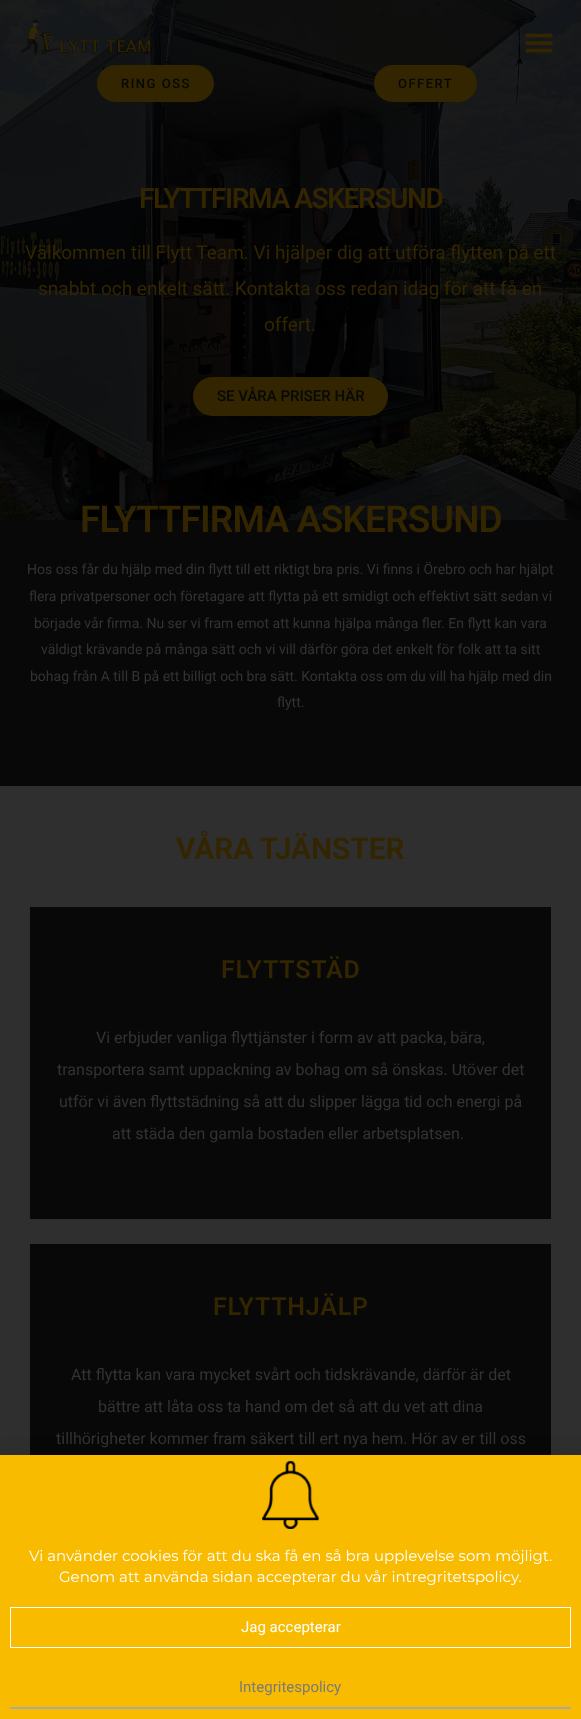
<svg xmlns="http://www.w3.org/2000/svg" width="581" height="1719">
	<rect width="100%" height="100%" fill="#FFFFFF" />
	<image x="0" y="0" width="581" height="520" href="assets/img3.png" />
	<image x="21" y="20" width="130" height="35" href="assets/img1.png" />
	<image x="525" y="33" width="28" height="20" href="assets/img2.png" />
	<rect x="97" y="65" width="117" height="37" rx="18.5" fill="#322500" />
	<text x="121" y="88" font-family="Roboto" font-size="13" font-weight="500" letter-spacing="1.5" fill="#080808">RING OSS</text>
	<rect x="374" y="65" width="103" height="37" rx="18.5" fill="#322500" />
	<text x="398" y="88" font-family="Roboto" font-size="13" font-weight="500" letter-spacing="1.5" fill="#080808">OFFERT</text>
	<text x="139" y="208" font-family="Roboto" font-size="28" font-weight="600" letter-spacing="-1.4" fill="#322500">FLYTTFIRMA ASKERSUND</text>
	<g font-family="Roboto" font-size="19" fill="#322500">
		<text x="25" y="259">Välkommen till Flytt Team. Vi hjälper dig att utföra flytten på ett</text>
		<text x="38" y="295">snabbt och enkelt sätt. Kontakta oss redan idag för att få en</text>
		<text x="264" y="331">offert.</text>
	</g>
	<rect x="193" y="377" width="195" height="39" rx="19.5" fill="#322500" />
	<text x="217" y="401" font-family="Roboto" font-size="15" font-weight="500" fill="#080808">SE VÅRA PRISER HÄR</text>
	<rect x="0" y="520" width="581" height="266" fill="#080808" />
	<text x="80" y="532" font-family="Roboto" font-size="37" font-weight="600" letter-spacing="-0.8" fill="#322500">FLYTTFIRMA ASKERSUND</text>
	<g font-family="Roboto" font-size="14" fill="#333333">
		<text x="27" y="574">Hos oss får du hjälp med din flytt till ett riktigt bra pris. Vi finns i Örebro och har hjälpt</text>
		<text x="29" y="601">flera privatpersoner och företagare att flytta på ett smidigt och effektivt sätt sedan vi</text>
		<text x="34" y="628">började vår firma. Nu ser vi fram emot att kunna hjälpa många fler. En flytt kan vara</text>
		<text x="41" y="654">väldigt krävande på många sätt och vi vill därför göra det enkelt för folk att ta sitt</text>
		<text x="30" y="681">bohag från A till B på ett billigt och bra sätt. Kontakta oss om du vill ha hjälp med din</text>
		<text x="277" y="707">flytt.</text>
	</g>
	<rect x="0" y="786" width="581" height="669" fill="#2F2F2F" />
	<text x="176" y="859" font-family="Roboto" font-size="30" font-weight="600" letter-spacing="-0.1" fill="#322500">VÅRA TJÄNSTER</text>
	<rect x="30" y="907" width="521" height="312" fill="#080808" />
	<text x="221" y="978" font-family="Roboto" font-size="25" font-weight="600" letter-spacing="0.75" fill="#322500">FLYTTSTÄD</text>
	<g font-family="Roboto" font-size="16" fill="#333333">
		<text x="96" y="1043">Vi erbjuder vanliga flyttjänster i form av att packa, bära,</text>
		<text x="57" y="1075">transportera samt uppackning av bohag om så önskas. Utöver det</text>
		<text x="59" y="1107">utför vi även flyttstädning så att du slipper lägga tid och energi på</text>
		<text x="112" y="1139">att städa den gamla bostaden eller arbetsplatsen.</text>
	</g>
	<rect x="30" y="1244" width="521" height="211" fill="#080808" />
	<text x="213" y="1315" font-family="Roboto" font-size="25" font-weight="600" letter-spacing="0.75" fill="#322500">FLYTTHJÄLP</text>
	<g font-family="Roboto" font-size="16" fill="#333333">
		<text x="71" y="1380">Att flytta kan vara mycket svårt och tidskrävande, därför är det</text>
		<text x="98" y="1412">bättre att låta oss ta hand om det så att du vet att dina</text>
		<text x="56" y="1444">tillhörigheter kommer fram säkert till ert nya hem. Hör av er till oss</text>
	</g>
	<rect x="-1" y="1460" width="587" height="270" fill="#000000" fill-opacity="0.2" filter="blur(11.5px)" />
	<rect x="0" y="1455" width="581" height="264" fill="#F8BB00" />
	<image x="262" y="1460" width="57" height="69" href="assets/img4.png" />
	<g font-family="Montserrat" font-size="15" fill="#FFFFFF">
		<text x="29" y="1561">Vi använder cookies för att du ska få en så bra upplevelse som möjligt.</text>
		<text x="59" y="1582">Genom att använda sidan accepterar du vår intregritetspolicy.</text>
	</g>
	<rect x="10.5" y="1607.5" width="560" height="40" fill="none" stroke="#FFFFFF" />
	<text x="241" y="1632" font-family="Roboto" font-size="15" fill="#FFFFFF">Jag accepterar</text>
	<rect x="10" y="1707" width="561" height="2" fill="#A9A9A9" />
	<text x="239" y="1692" font-family="Roboto" font-size="15" fill="#7A7A7A">Integritespolicy</text>
</svg>
